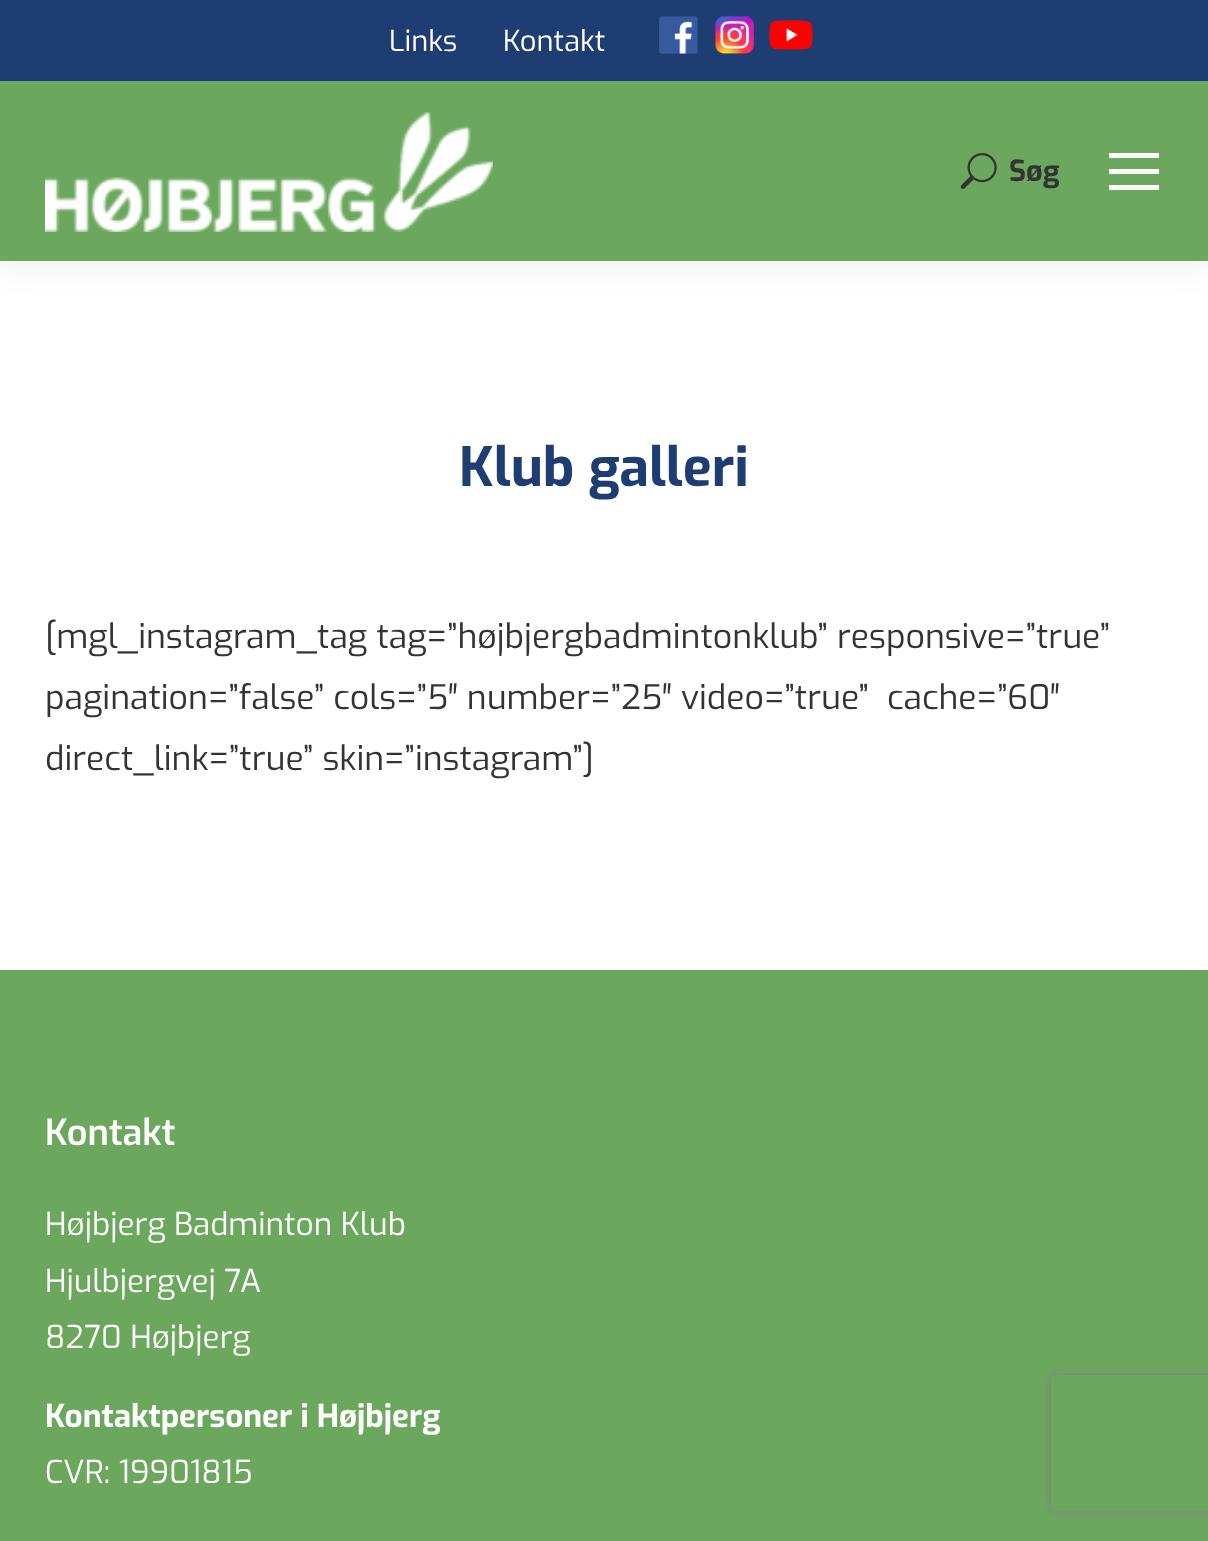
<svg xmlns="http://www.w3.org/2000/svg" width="1208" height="1541">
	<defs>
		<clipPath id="clip1"><path d="M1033 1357H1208V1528H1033ZM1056 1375H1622C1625 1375 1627 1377 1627 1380V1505C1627 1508 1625 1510 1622 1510H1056C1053 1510 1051 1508 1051 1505V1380C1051 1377 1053 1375 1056 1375Z" clip-rule="evenodd" /></clipPath>
	</defs>
	<rect width="100%" height="100%" fill="#FFFFFF" />
	<rect x="-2" y="-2" width="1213" height="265" fill="#000000" fill-opacity="0.07" filter="blur(17px)" />
	<rect x="0" y="81" width="1208" height="180" fill="#6BA85D" />
	<rect x="0" y="0" width="1208" height="81" fill="#1D3D73" />
	<g font-family="Exo" font-size="29" fill="#FFFFFF">
		<text x="389" y="51">Links</text>
		<text x="503" y="51">Kontakt</text>
	</g>
	<image x="659" y="16" width="39" height="38" href="assets/img1.png" />
	<image x="715" y="15" width="39" height="39" href="assets/img2.png" />
	<image x="769" y="20" width="44" height="30" href="assets/img3.png" />
	<image x="45" y="112" width="448" height="120" href="assets/img4.png" />
	<image x="960" y="153" width="37" height="36" href="assets/img5.png" />
	<text x="1009" y="181" font-family="Exo" font-size="29" font-weight="700" fill="#333333">Søg</text>
	<rect x="1109" y="153" width="50" height="5" fill="#FFFFFF" />
	<rect x="1109" y="169" width="50" height="5" fill="#FFFFFF" />
	<rect x="1109" y="185" width="50" height="5" fill="#FFFFFF" />
	<text x="459" y="486" font-family="Exo" font-size="54" font-weight="700" fill="#1D3D73">Klub galleri</text>
	<g font-family="Exo" font-size="33.75" fill="#333333">
		<text x="45" y="648">[mgl_instagram_tag tag=”højbjergbadmintonklub” responsive=”true”</text>
		<text x="45" y="709" xml:space="preserve">pagination=”false” cols=”5″ number=”25″ video=”true”  cache=”60″</text>
		<text x="45" y="770">direct_link=”true” skin=”instagram”]</text>
	</g>
	<rect x="0" y="970" width="1208" height="571" fill="#6BA85D" />
	<text x="45" y="1145" font-family="Exo" font-size="36" font-weight="600" fill="#FFFFFF">Kontakt</text>
	<g font-family="Exo" font-size="31.5" fill="#FFFFFF">
		<text x="45" y="1235">Højbjerg Badminton Klub</text>
		<text x="45" y="1292">Hjulbjergvej 7A</text>
		<text x="45" y="1348">8270 Højbjerg</text>
	</g>
	<text x="45" y="1427" font-family="Exo" font-size="31.5" font-weight="700" fill="#FFFFFF">Kontaktpersoner i Højbjerg</text>
	<text x="45" y="1483" font-family="Exo" font-size="31.5" fill="#FFFFFF">CVR: 19901815</text>
	<g clip-path="url(#clip1)">
		<rect x="1051" y="1375" width="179" height="135" rx="5" fill="#808080" filter="blur(5.5px)" />
	</g>
</svg>
